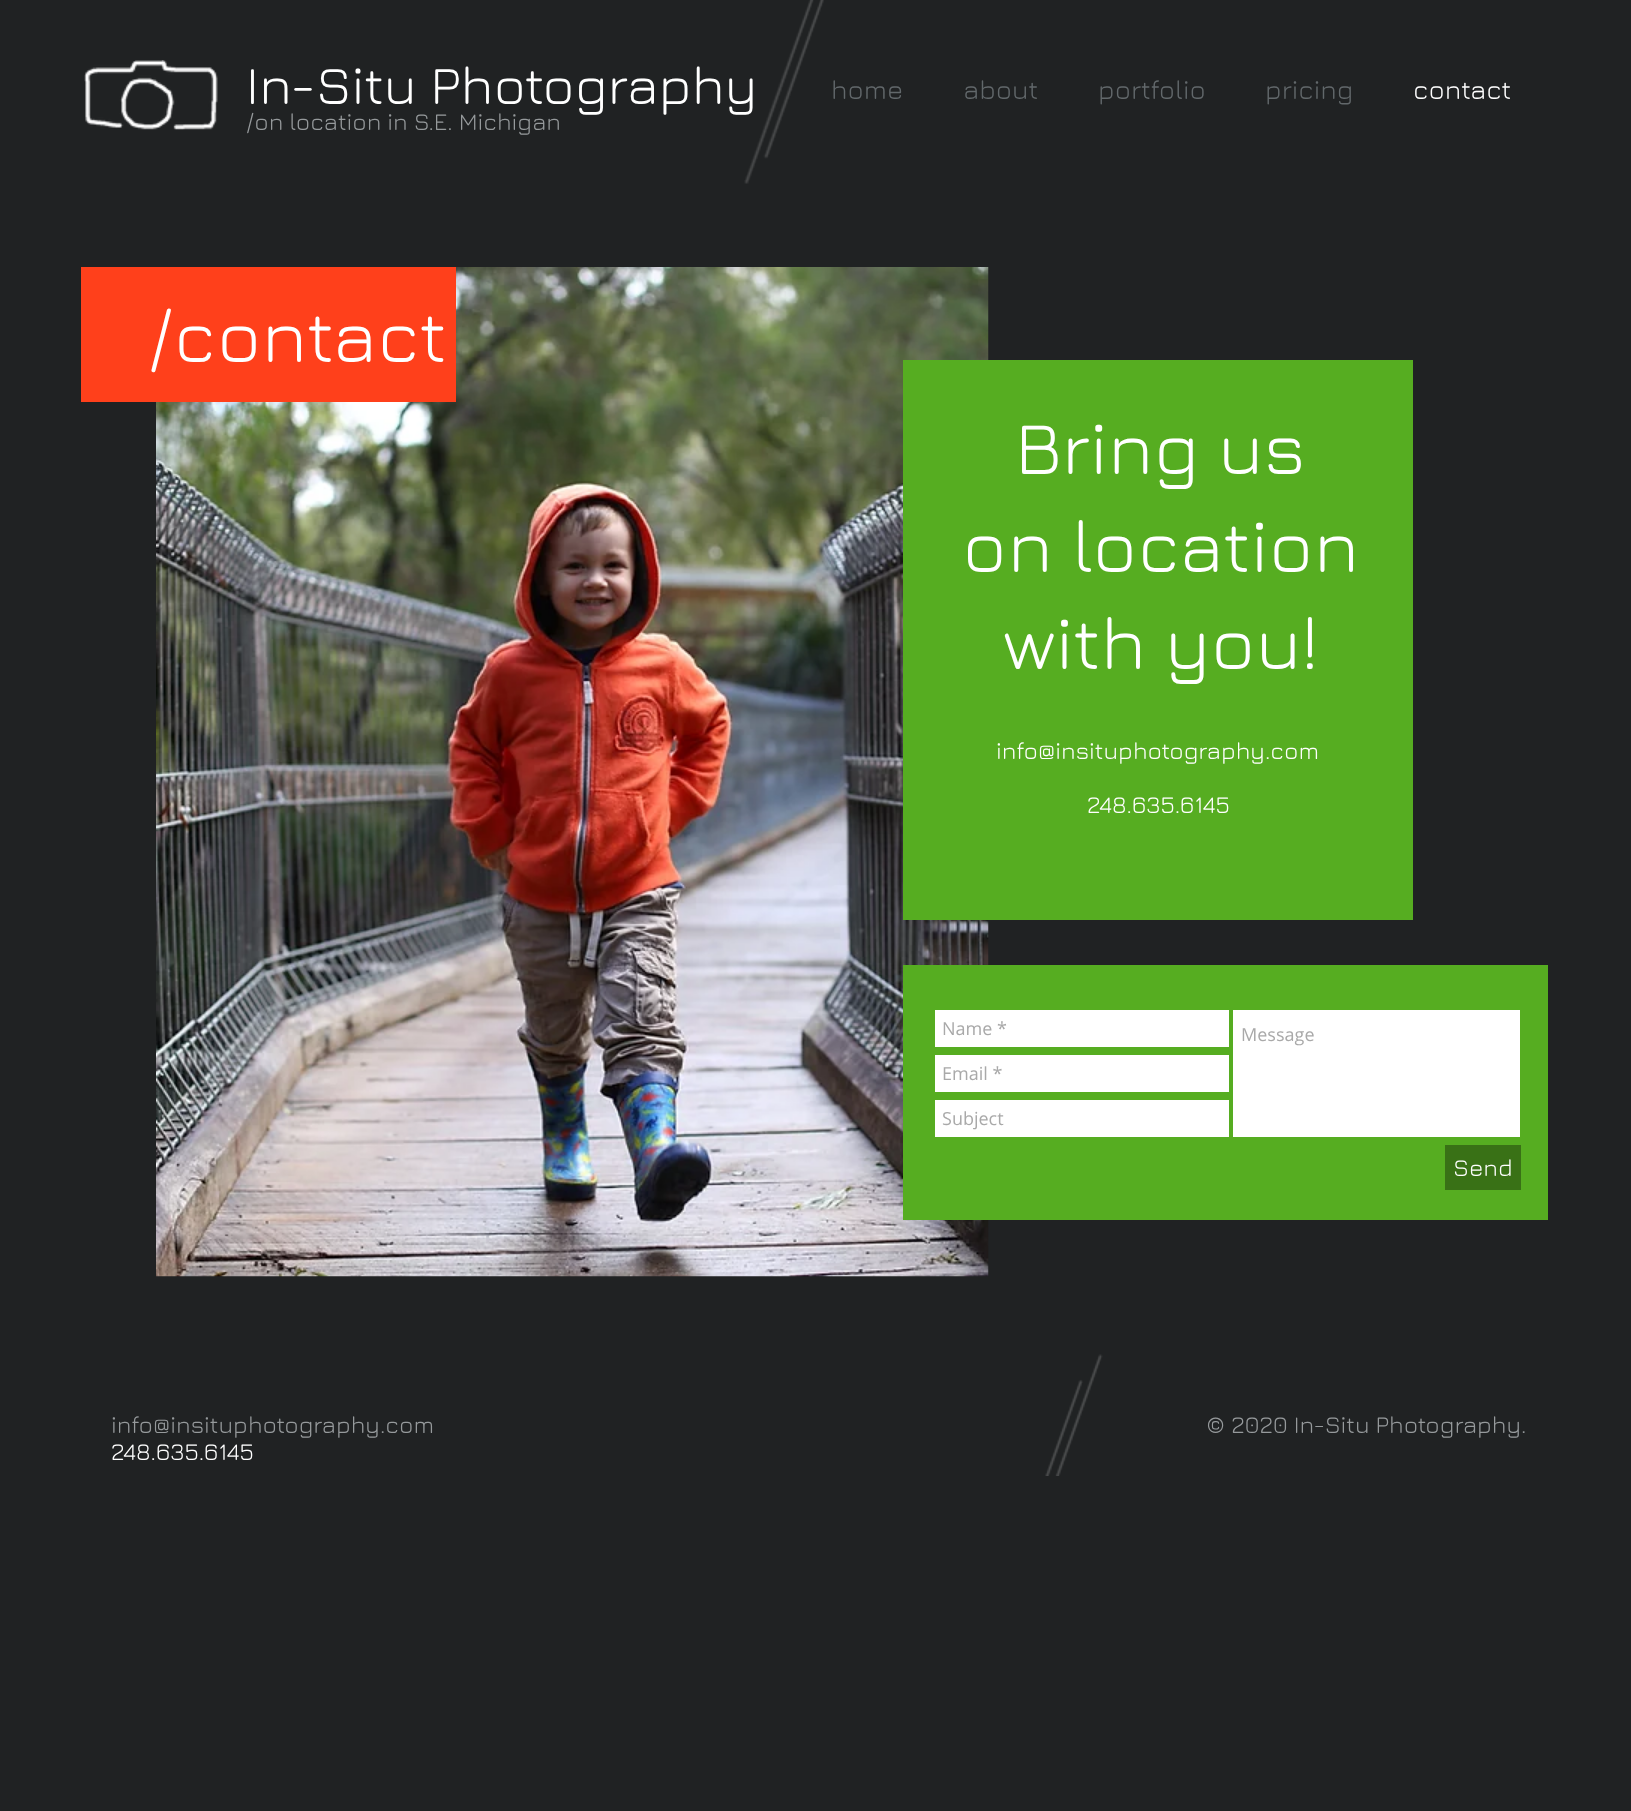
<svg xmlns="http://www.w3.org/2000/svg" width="1631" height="1811">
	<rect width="100%" height="100%" fill="#202223" />
	<image x="84" y="60" width="134" height="70" href="assets/img1.png" />
	<text x="246" y="104" font-family="Jura" font-size="54" fill="#FFFFFF">In-Situ Photography</text>
	<image x="744" y="0" width="80" height="184" href="assets/img2.png" />
	<g font-family="Jura" font-size="27" fill="#62686B">
		<text x="831" y="99">home</text>
		<text x="963" y="99">about</text>
		<text x="1098" y="99">portfolio</text>
		<text x="1265" y="99">pricing</text>
	</g>
	<text x="1413" y="99" font-family="Jura" font-size="27" fill="#FFFFFF">contact</text>
	<text x="246" y="130" font-family="Jura" font-size="24" fill="#969A9C">/on location in S.E. Michigan</text>
	<image x="156" y="267" width="833" height="1010" href="assets/img3.png" />
	<rect x="81" y="267" width="375" height="135" fill="#FF401B" />
	<text x="148" y="362" font-family="Jura" font-size="75" fill="#FFFFFF">/contact</text>
	<rect x="903" y="360" width="510" height="560" fill="#56AD21" />
	<g font-family="Jura" font-size="75" fill="#FFFFFF">
		<text x="1015" y="474">Bring us</text>
		<text x="962" y="572">on location</text>
		<text x="1003" y="669">with you!</text>
	</g>
	<g font-family="Jura" font-size="24" fill="#FFFFFF">
		<text x="996" y="759">info@insituphotography.com</text>
		<text x="1087" y="813">248.635.6145</text>
	</g>
	<rect x="903" y="965" width="645" height="255" fill="#56AD21" />
	<rect x="935" y="1010" width="294" height="37" fill="#FFFFFF" />
	<text x="942" y="1035" font-family="Open Sans" font-size="18" fill="#A9A9A9">Name *</text>
	<rect x="1233" y="1010" width="287" height="127" fill="#FFFFFF" />
	<text x="1241" y="1041" font-family="Open Sans" font-size="18" fill="#A9A9A9">Message</text>
	<rect x="935" y="1055" width="294" height="37" fill="#FFFFFF" />
	<text x="942" y="1080" font-family="Open Sans" font-size="18" fill="#A9A9A9">Email *</text>
	<rect x="935" y="1100" width="294" height="37" fill="#FFFFFF" />
	<text x="942" y="1125" font-family="Open Sans" font-size="18" fill="#A9A9A9">Subject</text>
	<rect x="1445" y="1145" width="76" height="45" fill="#397116" />
	<text x="1453" y="1176" font-family="Jura" font-size="24" fill="#FFFFFF">Send</text>
	<text x="111" y="1433" font-family="Jura" font-size="24" fill="#969A9C">info@insituphotography.com</text>
	<text x="111" y="1460" font-family="Jura" font-size="24" fill="#FFFFFF">248.635.6145</text>
	<image x="1045" y="1354" width="58" height="122" href="assets/img4.png" />
	<text x="1206" y="1433" font-family="Jura" font-size="24" fill="#969A9C">© 2020 In-Situ Photography.</text>
</svg>
